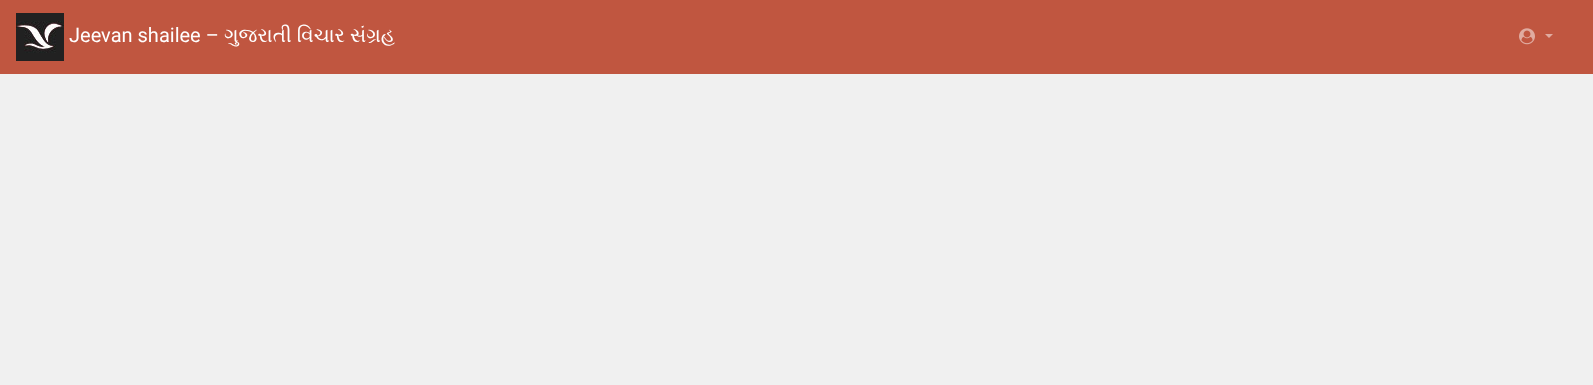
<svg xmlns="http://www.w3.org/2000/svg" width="1593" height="385">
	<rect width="100%" height="100%" fill="#F0F0F0" />
	<rect x="0" y="0" width="1593" height="74" fill="#C05640" />
	<image x="16" y="13" width="48" height="48" href="assets/img1.png" />
	<text x="69" y="42" font-family="Roboto" font-size="20" fill="#FFFFFF">Jeevan shailee –</text>
	<text x="224" y="42" font-family="FreeSerif" font-size="20" fill="#FFFFFF">ગુજરાતી વિચાર સંગ્રહ</text>
	<image x="1519" y="28" width="16" height="17" href="assets/img2.png" />
	<path d="M1545 34H1553L1549 38Z" fill="#E0ABA0" />
</svg>
